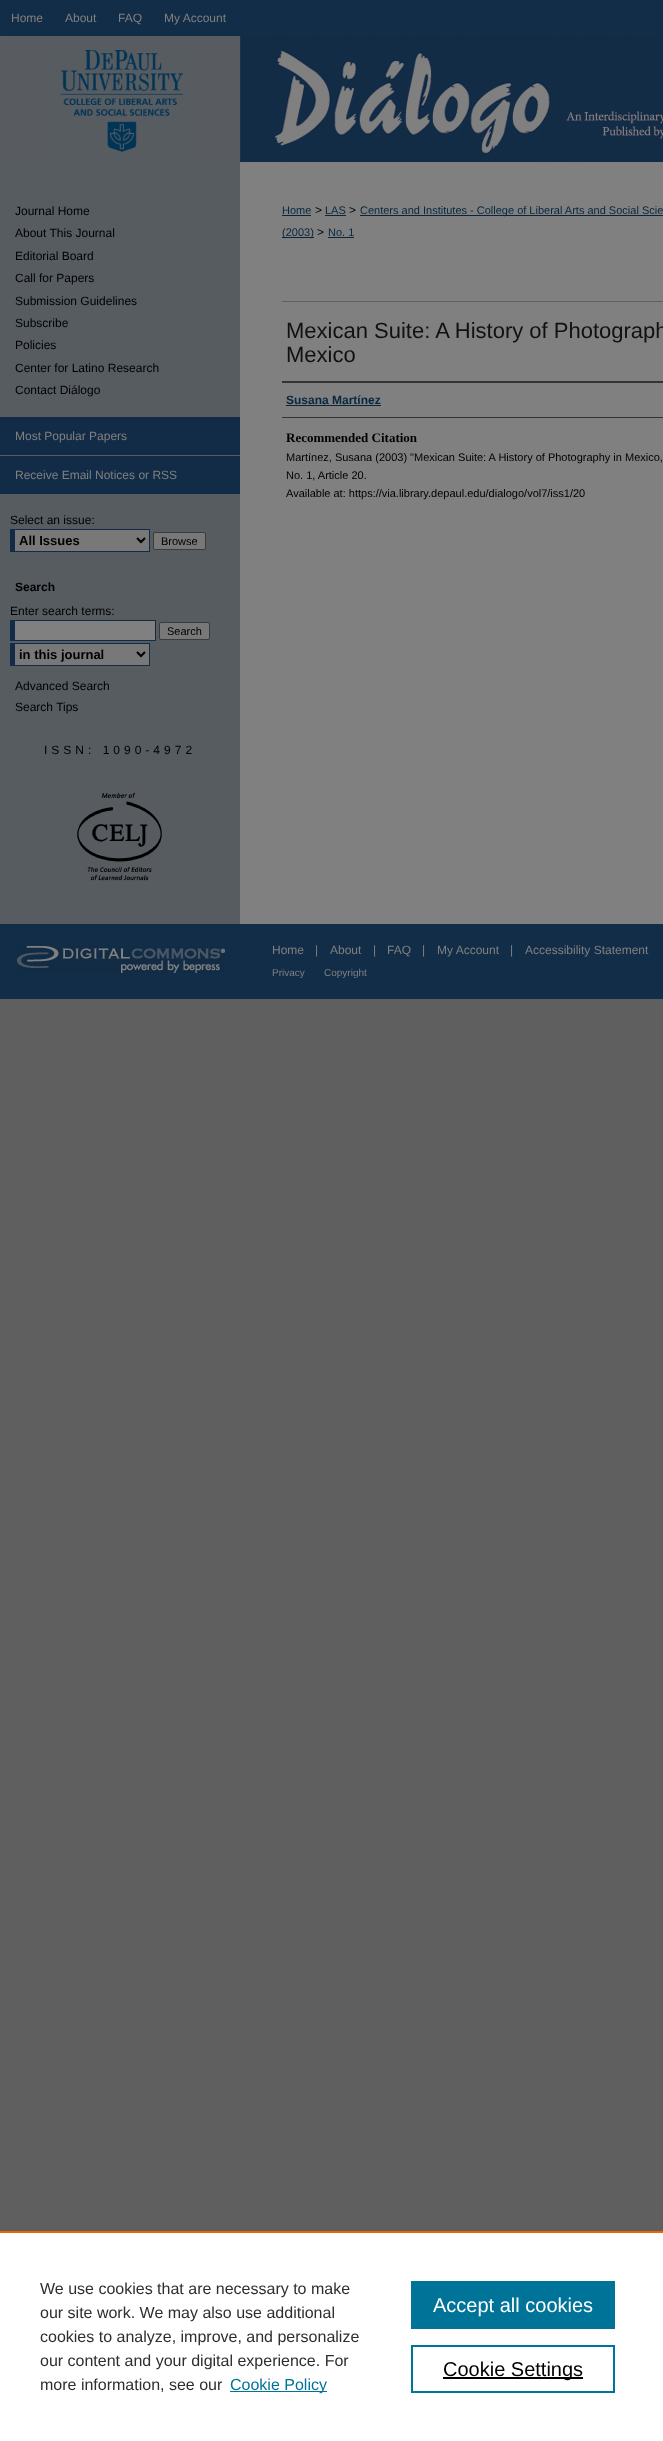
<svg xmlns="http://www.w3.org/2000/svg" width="663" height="2441">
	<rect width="100%" height="100%" fill="#5F5F5F" />
	<rect x="0" y="0" width="663" height="36" fill="#122D47" />
	<g font-family="Liberation Sans" font-size="12" fill="#808080">
		<text x="11" y="22">Home</text>
		<text x="65" y="22">About</text>
		<text x="118" y="22">FAQ</text>
		<text x="164" y="22">My Account</text>
	</g>
	<image x="0" y="36" width="240" height="126" href="assets/img1.png" />
	<image x="240" y="36" width="423" height="126" href="assets/img2.png" />
	<rect x="0" y="162" width="240" height="762" fill="#575C61" />
	<rect x="240" y="162" width="423" height="762" fill="#808080" />
	<g font-family="Liberation Sans" font-size="12" fill="#000000">
		<text x="15" y="215">Journal Home</text>
		<text x="15" y="237">About This Journal</text>
		<text x="15" y="260">Editorial Board</text>
		<text x="15" y="282">Call for Papers</text>
		<text x="15" y="305">Submission Guidelines</text>
		<text x="15" y="327">Subscribe</text>
		<text x="15" y="349">Policies</text>
		<text x="15" y="372">Center for Latino Research</text>
		<text x="15" y="394">Contact Diálogo</text>
	</g>
	<rect x="0" y="417" width="240" height="38" fill="#122C47" />
	<text x="15" y="440" font-family="Liberation Sans" font-size="12" fill="#808080">Most Popular Papers</text>
	<rect x="0" y="456" width="240" height="38" fill="#122C47" />
	<text x="15" y="479" font-family="Liberation Sans" font-size="12" fill="#808080">Receive Email Notices or RSS</text>
	<text x="10" y="524" font-family="Liberation Sans" font-size="12" fill="#000000">Select an issue:</text>
	<rect x="15" y="530" width="134" height="21" fill="#787878" />
	<rect x="10" y="529" width="140" height="1" fill="#122C47" />
	<rect x="149" y="529" width="1" height="23" fill="#122C47" />
	<rect x="10" y="551" width="140" height="1" fill="#122C47" />
	<rect x="10" y="529" width="5" height="23" fill="#122C47" />
	<path d="M137 538L141 542L145 538" fill="none" stroke="#000000" stroke-width="2" />
	<text x="19" y="545" font-family="Liberation Sans" font-size="13" font-weight="700" fill="#000000">All Issues</text>
	<rect x="153.5" y="532.5" width="52" height="17" rx="1.5" fill="#787878" stroke="#3B3B3B" />
	<text x="161" y="545" font-family="Liberation Sans" font-size="11" fill="#000000">Browse</text>
	<text x="15" y="591" font-family="Liberation Sans" font-size="12" font-weight="700" fill="#000000">Search</text>
	<text x="10" y="615" font-family="Liberation Sans" font-size="12" fill="#000000">Enter search terms:</text>
	<rect x="15" y="621" width="140" height="19" fill="#808080" />
	<rect x="10" y="620" width="146" height="1" fill="#122C47" />
	<rect x="155" y="620" width="1" height="21" fill="#122C47" />
	<rect x="10" y="640" width="146" height="1" fill="#122C47" />
	<rect x="10" y="620" width="5" height="21" fill="#122C47" />
	<rect x="159.5" y="622.5" width="50" height="17" rx="1.5" fill="#787878" stroke="#3B3B3B" />
	<text x="167" y="635" font-family="Liberation Sans" font-size="11" fill="#000000">Search</text>
	<rect x="15" y="644" width="134" height="21" fill="#787878" />
	<rect x="10" y="643" width="140" height="1" fill="#122C47" />
	<rect x="149" y="643" width="1" height="23" fill="#122C47" />
	<rect x="10" y="665" width="140" height="1" fill="#122C47" />
	<rect x="10" y="643" width="5" height="23" fill="#122C47" />
	<path d="M137 652L141 656L145 652" fill="none" stroke="#000000" stroke-width="2" />
	<text x="19" y="659" font-family="Liberation Sans" font-size="13" font-weight="700" fill="#000000">in this journal</text>
	<g font-family="Liberation Sans" font-size="12" fill="#000000">
		<text x="15" y="690">Advanced Search</text>
		<text x="15" y="711">Search Tips</text>
	</g>
	<text x="44" y="754" font-family="Liberation Sans" font-size="12" letter-spacing="4" fill="#000000">ISSN: 1090-4972</text>
	<image x="77" y="792" width="85" height="90" href="assets/img3.png" />
	<text x="282" y="214" font-family="Liberation Sans" font-size="11" fill="#08273E">Home</text>
	<rect x="282" y="215" width="29" height="1" fill="#08273E" />
	<text x="315" y="214" font-family="Liberation Sans" font-size="12" fill="#000000">&gt;</text>
	<text x="325" y="214" font-family="Liberation Sans" font-size="11" fill="#08273E">LAS</text>
	<rect x="325" y="215" width="21" height="1" fill="#08273E" />
	<text x="349" y="214" font-family="Liberation Sans" font-size="12" fill="#000000">&gt;</text>
	<rect x="360" y="215" width="303" height="1" fill="#08273E" />
	<text x="360" y="214" font-family="Liberation Sans" font-size="11" fill="#08273E">Centers and Institutes - College of Liberal Arts and Social Scie</text>
	<rect x="282" y="237" width="32" height="1" fill="#08273E" />
	<text x="282" y="236" font-family="Liberation Sans" font-size="11" fill="#08273E">(2003)</text>
	<text x="317" y="236" font-family="Liberation Sans" font-size="12" fill="#000000">&gt;</text>
	<text x="328" y="236" font-family="Liberation Sans" font-size="11" fill="#08273E">No. 1</text>
	<rect x="328" y="237" width="26" height="1" fill="#08273E" />
	<rect x="282" y="301" width="381" height="1" fill="#606060" />
	<g font-family="Liberation Sans" font-size="22" fill="#111111">
		<text x="286" y="338">Mexican Suite: A History of Photograph</text>
		<text x="286" y="362">Mexico</text>
	</g>
	<rect x="282" y="381" width="381" height="2" fill="#333333" />
	<rect x="282" y="417" width="381" height="1" fill="#333333" />
	<text x="286" y="404" font-family="Liberation Sans" font-size="12" font-weight="700" fill="#08273E">Susana Martínez</text>
	<rect x="286" y="405" width="95" height="1" fill="#08273E" />
	<text x="286" y="442" font-family="Liberation Serif" font-size="13" font-weight="700" fill="#000000">Recommended Citation</text>
	<g font-family="Liberation Sans" font-size="11" fill="#000000">
		<text x="286" y="461">Martínez, Susana (2003) "Mexican Suite: A History of Photography in Mexico,</text>
		<text x="286" y="479">No. 1, Article 20.</text>
		<text x="286" y="497">Available at: https://via.library.depaul.edu/dialogo/vol7/iss1/20</text>
	</g>
	<rect x="0" y="924" width="663" height="75" fill="#122D47" />
	<image x="17" y="946" width="208" height="27" href="assets/img4.png" />
	<g font-family="Liberation Sans" font-size="12" fill="#808080">
		<text x="272" y="954">Home</text>
		<text x="315" y="954">|</text>
		<text x="330" y="954">About</text>
		<text x="373" y="954">|</text>
		<text x="387" y="954">FAQ</text>
		<text x="422" y="954">|</text>
		<text x="437" y="954">My Account</text>
		<text x="510" y="954">|</text>
		<text x="525" y="954">Accessibility Statement</text>
	</g>
	<g font-family="Liberation Sans" font-size="10" fill="#808080">
		<text x="272" y="976">Privacy</text>
		<text x="324" y="976">Copyright</text>
	</g>
	<rect x="0" y="2233" width="663" height="208" fill="#FFFFFF" />
	<rect x="0" y="2231" width="663" height="2" fill="#EB6500" />
	<g font-family="Liberation Sans" font-size="16" fill="#2E2E2E">
		<text x="40" y="2294">We use cookies that are necessary to make</text>
		<text x="40" y="2318">our site work. We may also use additional</text>
		<text x="40" y="2342">cookies to analyze, improve, and personalize</text>
		<text x="40" y="2366">our content and your digital experience. For</text>
		<text x="40" y="2390">more information, see our</text>
	</g>
	<rect x="230" y="2391" width="97" height="1" fill="#007398" />
	<text x="230" y="2390" font-family="Liberation Sans" font-size="16" fill="#007398">Cookie Policy</text>
	<rect x="411" y="2281" width="204" height="48" fill="#007398" />
	<text x="433" y="2312" font-family="Liberation Sans" font-size="20" fill="#FFFFFF">Accept all cookies</text>
	<rect x="412" y="2346" width="202" height="46" fill="none" stroke="#007398" stroke-width="2" />
	<rect x="443" y="2377" width="140" height="2" fill="#000000" />
	<text x="443" y="2376" font-family="Liberation Sans" font-size="20" fill="#000000">Cookie Settings</text>
</svg>
